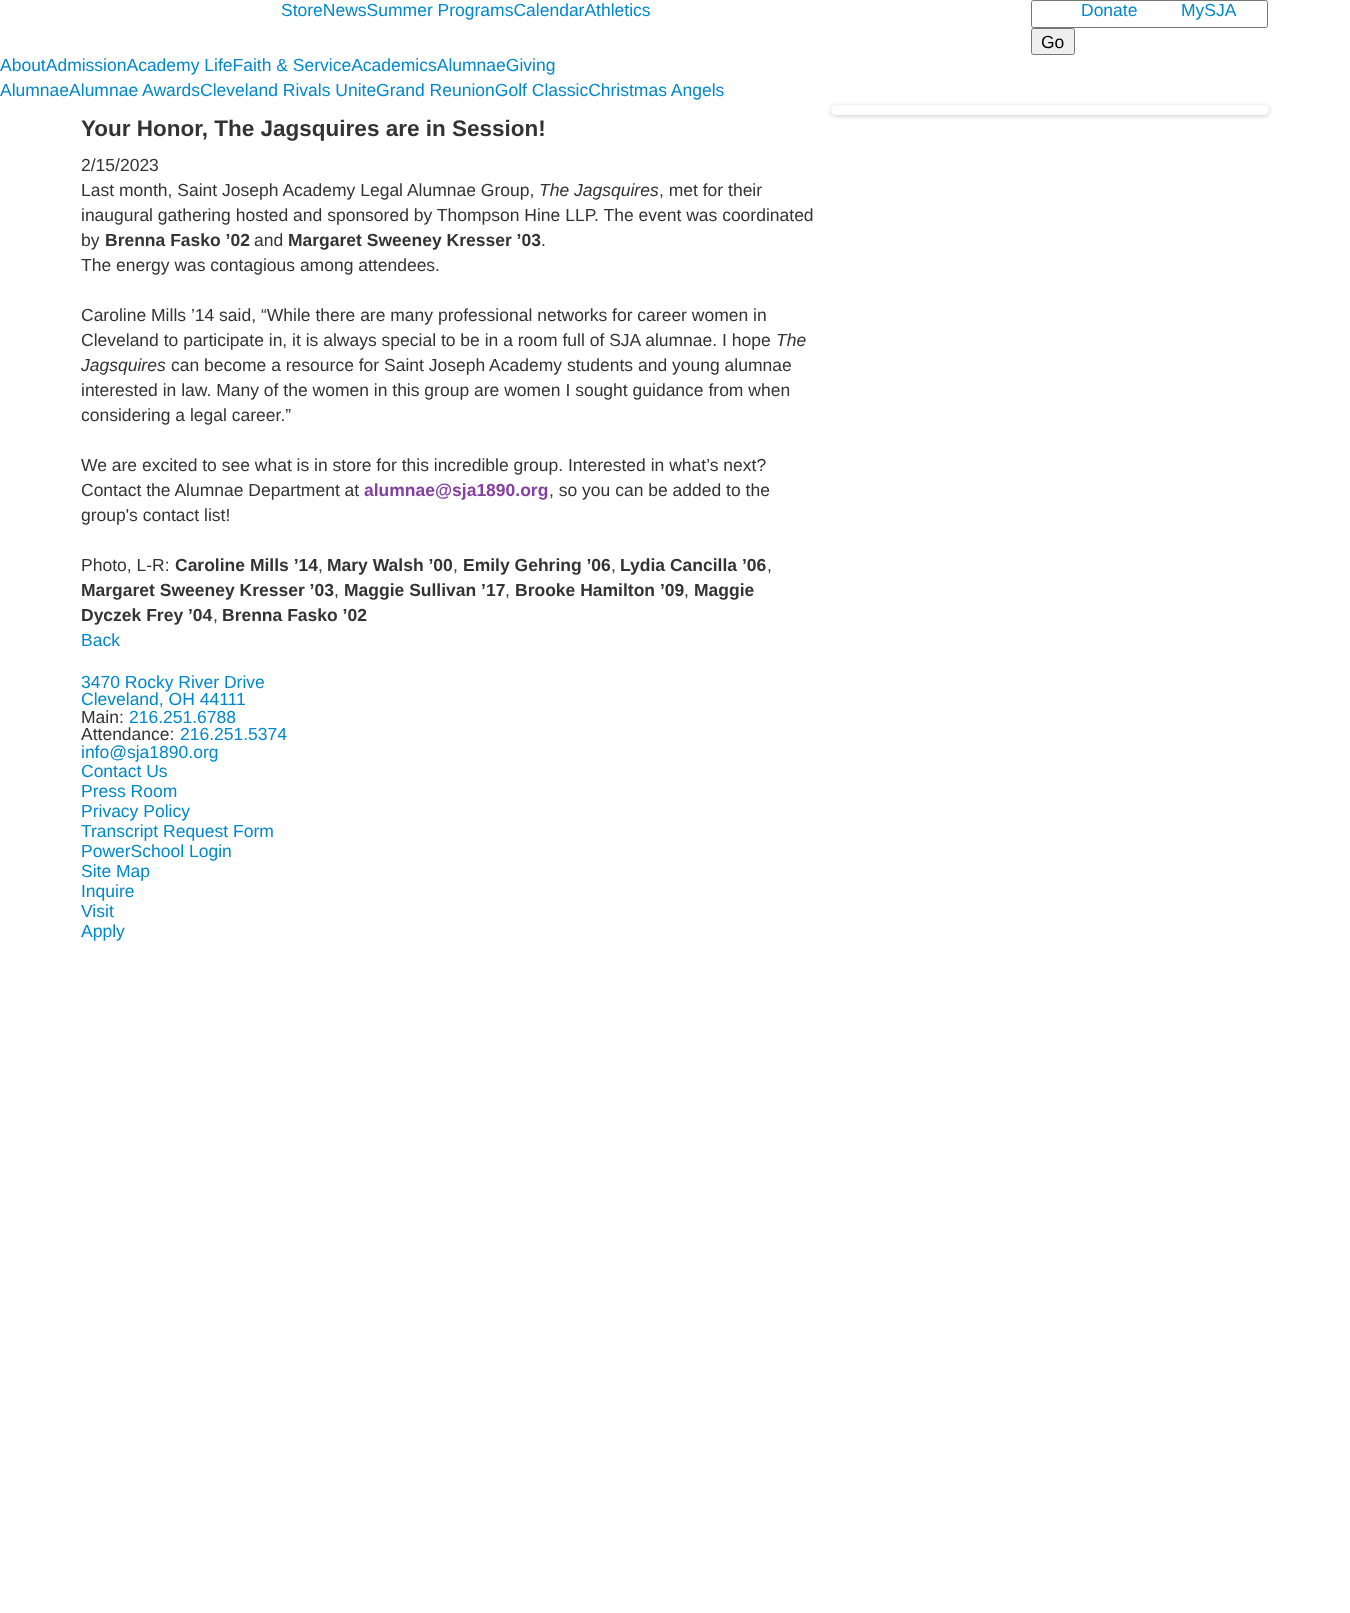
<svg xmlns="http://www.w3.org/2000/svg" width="1350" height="1613">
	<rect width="100%" height="100%" fill="#FFFFFF" />
	<text x="281" y="16" font-family="Liberation Sans" font-size="17.5" fill="#0088CC">StoreNewsSummer ProgramsCalendarAthletics</text>
	<rect x="1031.5" y="0.5" width="236" height="27" rx="2" fill="none" stroke="#767676" />
	<g font-family="Liberation Sans" font-size="17.5" fill="#0088CC">
		<text x="1081" y="16">Donate</text>
		<text x="1181" y="16">MySJA</text>
	</g>
	<rect x="1031.5" y="28.5" width="43" height="26" rx="2" fill="#EFEFEF" stroke="#767676" />
	<text x="1041" y="48" font-family="Liberation Sans" font-size="17.5" fill="#000000">Go</text>
	<g font-family="Liberation Sans" font-size="17.5" fill="#0088CC">
		<text x="0" y="71">AboutAdmissionAcademy LifeFaith &amp; ServiceAcademicsAlumnaeGiving</text>
		<text x="0" y="96">AlumnaeAlumnae AwardsCleveland Rivals UniteGrand ReunionGolf ClassicChristmas Angels</text>
	</g>
	<rect x="831" y="106" width="438" height="10" rx="5" fill="#000000" fill-opacity="0.2" filter="blur(2.5px)" />
	<rect x="831" y="105" width="438" height="10" rx="5" fill="#FFFFFF" />
	<text x="81" y="136" font-family="Liberation Sans" font-size="22.5" font-weight="700" fill="#333333">Your Honor, The Jagsquires are in Session!</text>
	<g font-family="Liberation Sans" font-size="17.5" fill="#333333">
		<text x="81" y="171">2/15/2023</text>
		<text x="81" y="196">Last month, Saint Joseph Academy Legal Alumnae Group,</text>
	</g>
	<text x="539" y="196" font-family="Liberation Sans" font-size="17.5" font-style="italic" fill="#333333">The Jagsquires</text>
	<g font-family="Liberation Sans" font-size="17.5" fill="#333333">
		<text x="659" y="196">, met for their</text>
		<text x="81" y="221">inaugural gathering hosted and sponsored by Thompson Hine LLP. The event was coordinated</text>
		<text x="81" y="246">by</text>
	</g>
	<text x="105" y="246" font-family="Liberation Sans" font-size="17.5" font-weight="700" fill="#333333">Brenna Fasko ’02</text>
	<text x="254" y="246" font-family="Liberation Sans" font-size="17.5" fill="#333333">and</text>
	<text x="288" y="246" font-family="Liberation Sans" font-size="17.5" font-weight="700" fill="#333333">Margaret Sweeney Kresser ’03</text>
	<g font-family="Liberation Sans" font-size="17.5" fill="#333333">
		<text x="541" y="246">.</text>
		<text x="81" y="271">The energy was contagious among attendees.</text>
		<text x="81" y="321">Caroline Mills ’14 said, “While there are many professional networks for career women in</text>
		<text x="81" y="346">Cleveland to participate in, it is always special to be in a room full of SJA alumnae. I hope</text>
	</g>
	<g font-family="Liberation Sans" font-size="17.5" font-style="italic" fill="#333333">
		<text x="776" y="346">The</text>
		<text x="81" y="371">Jagsquires</text>
	</g>
	<g font-family="Liberation Sans" font-size="17.5" fill="#333333">
		<text x="171" y="371">can become a resource for Saint Joseph Academy students and young alumnae</text>
		<text x="81" y="396">interested in law. Many of the women in this group are women I sought guidance from when</text>
		<text x="81" y="421">considering a legal career.”</text>
		<text x="81" y="471">We are excited to see what is in store for this incredible group. Interested in what’s next?</text>
		<text x="81" y="496">Contact the Alumnae Department at</text>
	</g>
	<text x="364" y="496" font-family="Liberation Sans" font-size="17.5" font-weight="700" fill="#843FA1">alumnae@sja1890.org</text>
	<g font-family="Liberation Sans" font-size="17.5" fill="#333333">
		<text x="549" y="496">, so you can be added to the</text>
		<text x="81" y="521">group's contact list!</text>
		<text x="81" y="571">Photo, L-R:</text>
	</g>
	<text x="175" y="571" font-family="Liberation Sans" font-size="17.5" font-weight="700" fill="#333333">Caroline Mills ’14</text>
	<text x="318" y="571" font-family="Liberation Sans" font-size="17.5" fill="#333333">,</text>
	<text x="327" y="571" font-family="Liberation Sans" font-size="17.5" font-weight="700" fill="#333333">Mary Walsh ’00</text>
	<text x="453" y="571" font-family="Liberation Sans" font-size="17.5" fill="#333333">,</text>
	<text x="463" y="571" font-family="Liberation Sans" font-size="17.5" font-weight="700" fill="#333333">Emily Gehring ’06</text>
	<text x="611" y="571" font-family="Liberation Sans" font-size="17.5" fill="#333333">,</text>
	<text x="620" y="571" font-family="Liberation Sans" font-size="17.5" font-weight="700" fill="#333333">Lydia Cancilla ’06</text>
	<text x="767" y="571" font-family="Liberation Sans" font-size="17.5" fill="#333333">,</text>
	<text x="81" y="596" font-family="Liberation Sans" font-size="17.5" font-weight="700" fill="#333333">Margaret Sweeney Kresser ’03</text>
	<text x="334" y="596" font-family="Liberation Sans" font-size="17.5" fill="#333333">,</text>
	<text x="344" y="596" font-family="Liberation Sans" font-size="17.5" font-weight="700" fill="#333333">Maggie Sullivan ’17</text>
	<text x="505" y="596" font-family="Liberation Sans" font-size="17.5" fill="#333333">,</text>
	<text x="515" y="596" font-family="Liberation Sans" font-size="17.5" font-weight="700" fill="#333333">Brooke Hamilton ’09</text>
	<text x="684" y="596" font-family="Liberation Sans" font-size="17.5" fill="#333333">,</text>
	<g font-family="Liberation Sans" font-size="17.5" font-weight="700" fill="#333333">
		<text x="694" y="596">Maggie</text>
		<text x="81" y="621">Dyczek Frey ’04</text>
	</g>
	<text x="213" y="621" font-family="Liberation Sans" font-size="17.5" fill="#333333">,</text>
	<text x="222" y="621" font-family="Liberation Sans" font-size="17.5" font-weight="700" fill="#333333">Brenna Fasko ’02</text>
	<g font-family="Liberation Sans" font-size="17.5" fill="#0088CC">
		<text x="81" y="646">Back</text>
		<text x="81" y="688">3470 Rocky River Drive</text>
		<text x="81" y="705">Cleveland, OH 44111</text>
	</g>
	<text x="81" y="723" font-family="Liberation Sans" font-size="17.5" fill="#333333">Main:</text>
	<text x="129" y="723" font-family="Liberation Sans" font-size="17.5" fill="#0088CC">216.251.6788</text>
	<text x="81" y="740" font-family="Liberation Sans" font-size="17.5" fill="#333333">Attendance:</text>
	<g font-family="Liberation Sans" font-size="17.5" fill="#0088CC">
		<text x="180" y="740">216.251.5374</text>
		<text x="81" y="758">info@sja1890.org</text>
		<text x="81" y="777">Contact Us</text>
		<text x="81" y="797">Press Room</text>
		<text x="81" y="817">Privacy Policy</text>
		<text x="81" y="837">Transcript Request Form</text>
		<text x="81" y="857">PowerSchool Login</text>
		<text x="81" y="877">Site Map</text>
		<text x="81" y="897">Inquire</text>
		<text x="81" y="917">Visit</text>
		<text x="81" y="937">Apply</text>
	</g>
</svg>
